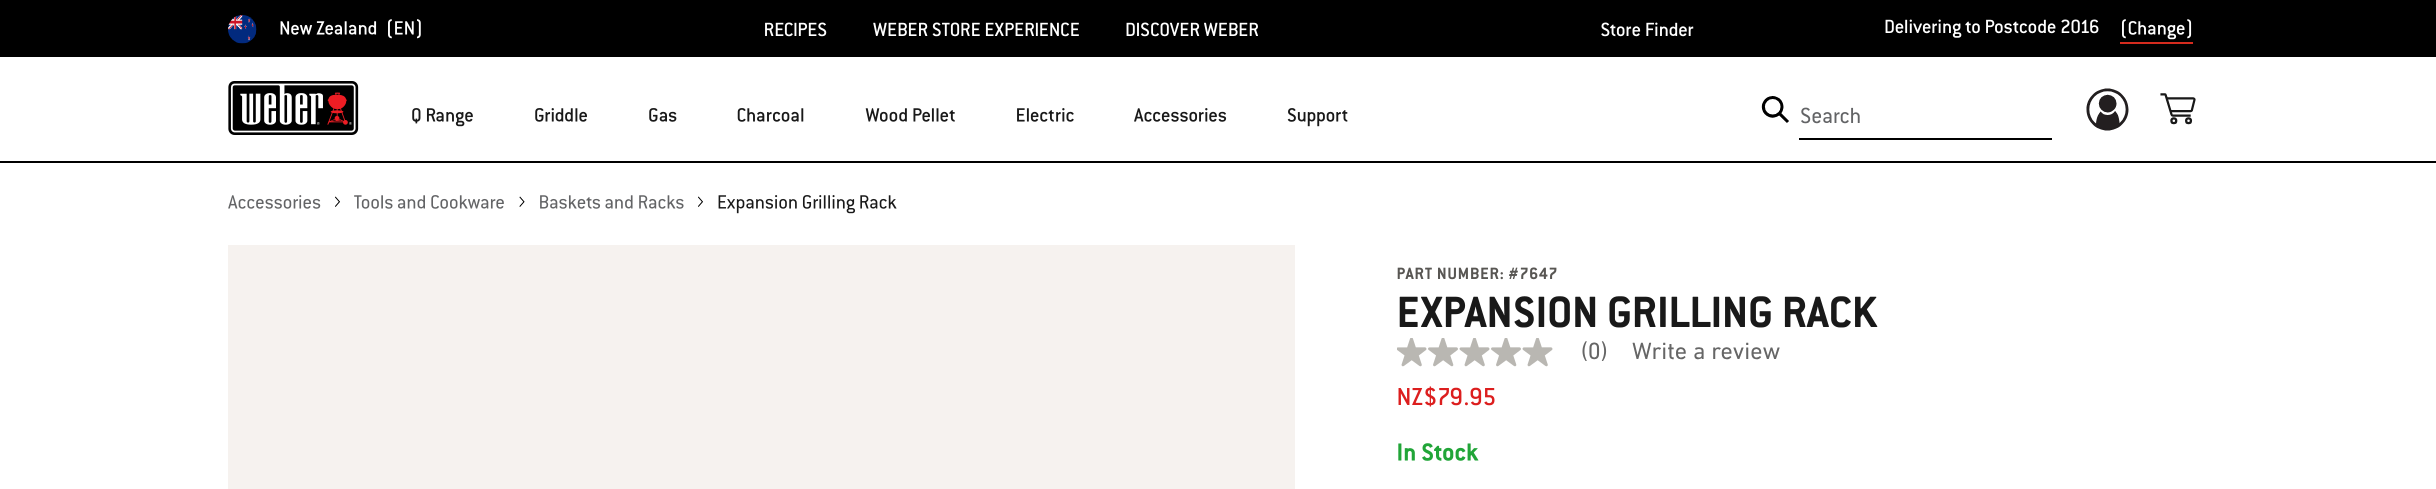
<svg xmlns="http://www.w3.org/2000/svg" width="2436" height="489">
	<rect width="100%" height="100%" fill="#FFFFFF" />
	<rect x="0" y="0" width="2436" height="57" fill="#000000" />
	<image x="228" y="15" width="29" height="29" href="assets/img1.png" />
	<image x="280" y="21" width="97" height="14" href="assets/img2.png" />
	<image x="388" y="19" width="33" height="20" href="assets/img3.png" />
	<image x="765" y="22" width="62" height="15" href="assets/img4.png" />
	<image x="873" y="22" width="206" height="15" href="assets/img5.png" />
	<image x="1126" y="22" width="132" height="15" href="assets/img6.png" />
	<image x="1601" y="22" width="93" height="15" href="assets/img7.png" />
	<image x="1885" y="19" width="214" height="19" href="assets/img8.png" />
	<image x="2122" y="19" width="70" height="21" href="assets/img9.png" />
	<rect x="2120" y="42" width="73" height="2" fill="#D52B1E" />
	<rect x="0" y="161" width="2436" height="2" fill="#000000" />
	<image x="228" y="81" width="131" height="54" href="assets/img10.png" />
	<image x="412" y="108" width="61" height="19" href="assets/img11.png" />
	<image x="535" y="108" width="52" height="14" href="assets/img12.png" />
	<image x="649" y="108" width="28" height="14" href="assets/img13.png" />
	<image x="737" y="108" width="67" height="14" href="assets/img14.png" />
	<image x="865" y="108" width="90" height="14" href="assets/img15.png" />
	<image x="1017" y="108" width="57" height="14" href="assets/img16.png" />
	<image x="1134" y="108" width="93" height="14" href="assets/img17.png" />
	<image x="1287" y="108" width="61" height="19" href="assets/img18.png" />
	<image x="1761" y="96" width="28" height="27" href="assets/img19.png" />
	<image x="1801" y="107" width="59" height="17" href="assets/img20.png" />
	<rect x="1799" y="138" width="253" height="2" fill="#000000" />
	<image x="2086" y="88" width="43" height="43" href="assets/img21.png" />
	<image x="2160" y="93" width="36" height="32" href="assets/img22.png" />
	<image x="228" y="195" width="93" height="14" href="assets/img23.png" />
	<image x="335" y="196" width="5" height="11" href="assets/img24.png" />
	<image x="354" y="195" width="150" height="14" href="assets/img25.png" />
	<image x="519" y="196" width="6" height="11" href="assets/img26.png" />
	<image x="540" y="195" width="144" height="14" href="assets/img27.png" />
	<image x="698" y="196" width="5" height="11" href="assets/img24.png" />
	<image x="718" y="195" width="179" height="19" href="assets/img28.png" />
	<rect x="228" y="245" width="1067" height="244" fill="#F6F2EF" />
	<image x="1397" y="267" width="106" height="13" href="assets/img29.png" />
	<image x="1509" y="267" width="9" height="12" href="assets/img30.png" />
	<image x="1520" y="267" width="37" height="13" href="assets/img31.png" />
	<image x="1399" y="296" width="479" height="32" href="assets/img32.png" />
	<image x="1397" y="338" width="30" height="29" href="assets/img33.png" />
	<image x="1428" y="338" width="30" height="29" href="assets/img34.png" />
	<image x="1459" y="338" width="31" height="29" href="assets/img35.png" />
	<image x="1491" y="338" width="30" height="29" href="assets/img34.png" />
	<image x="1522" y="338" width="31" height="29" href="assets/img35.png" />
	<g font-family="DIN Next" font-size="24" fill="#666666">
		<text x="1581" y="359">(0)</text>
		<text x="1632" y="359">Write a review</text>
	</g>
	<image x="1398" y="386" width="97" height="21" href="assets/img36.png" />
	<image x="1398" y="443" width="81" height="18" href="assets/img37.png" />
</svg>
